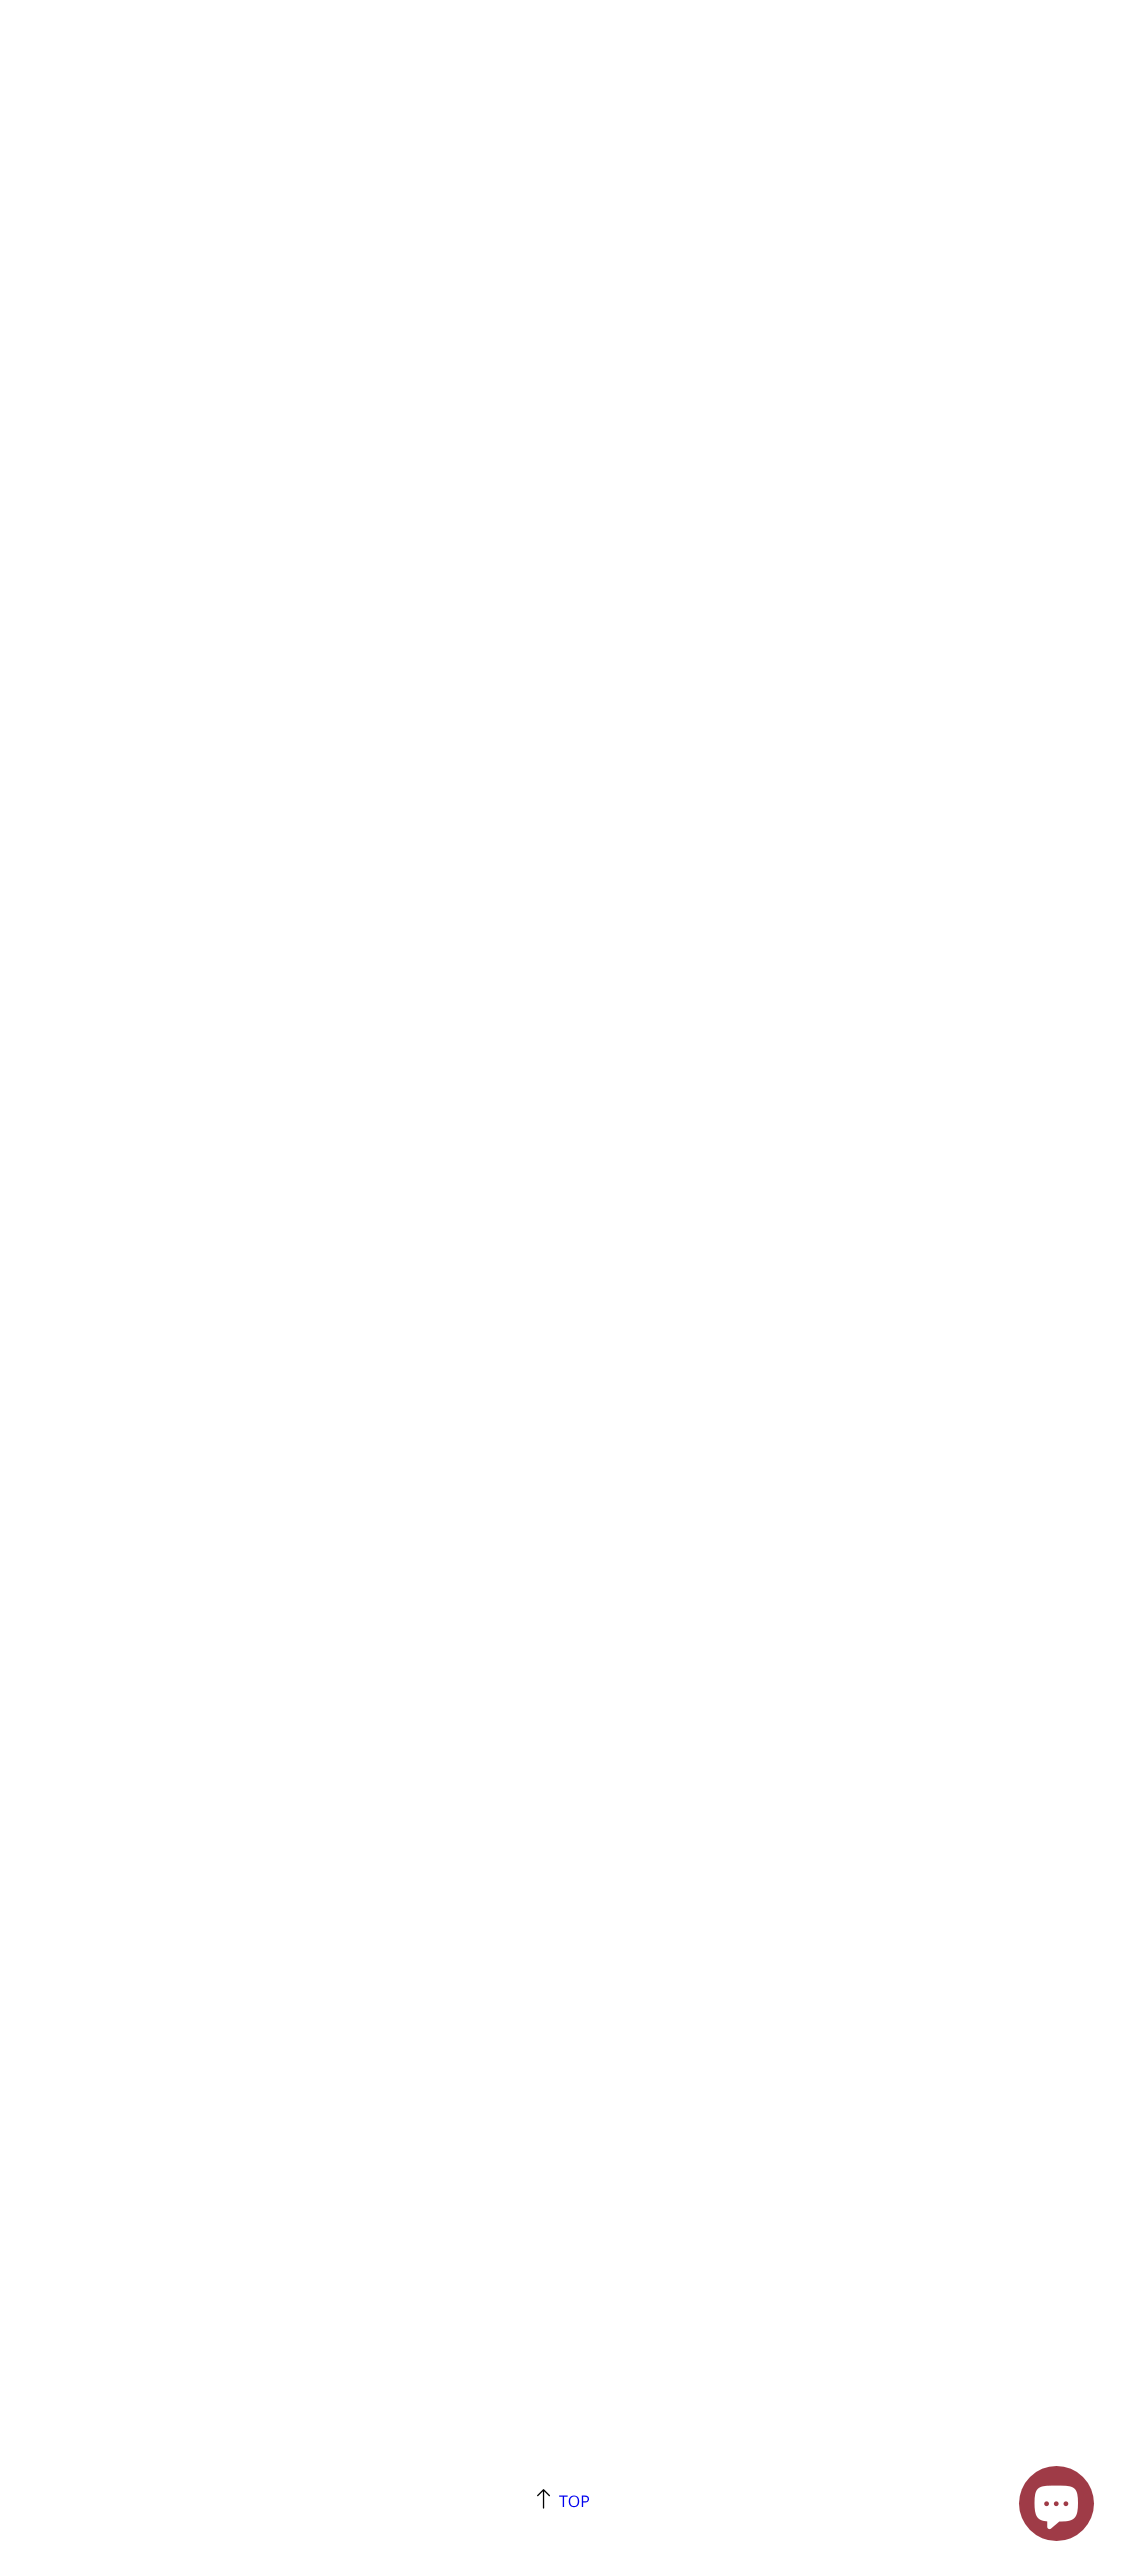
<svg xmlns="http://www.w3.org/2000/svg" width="1121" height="2567">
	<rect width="100%" height="100%" fill="#FFFFFF" />
	<image x="537" y="2489" width="13" height="20" href="assets/img1.png" />
	<text x="559" y="2507" font-family="Open Sans" font-size="16" fill="#0000EE">TOP</text>
	<circle cx="1056.5" cy="2503.5" r="37.5" fill="#9F3B47" />
	<image x="1034" y="2485" width="44" height="45" href="assets/img2.png" />
</svg>
